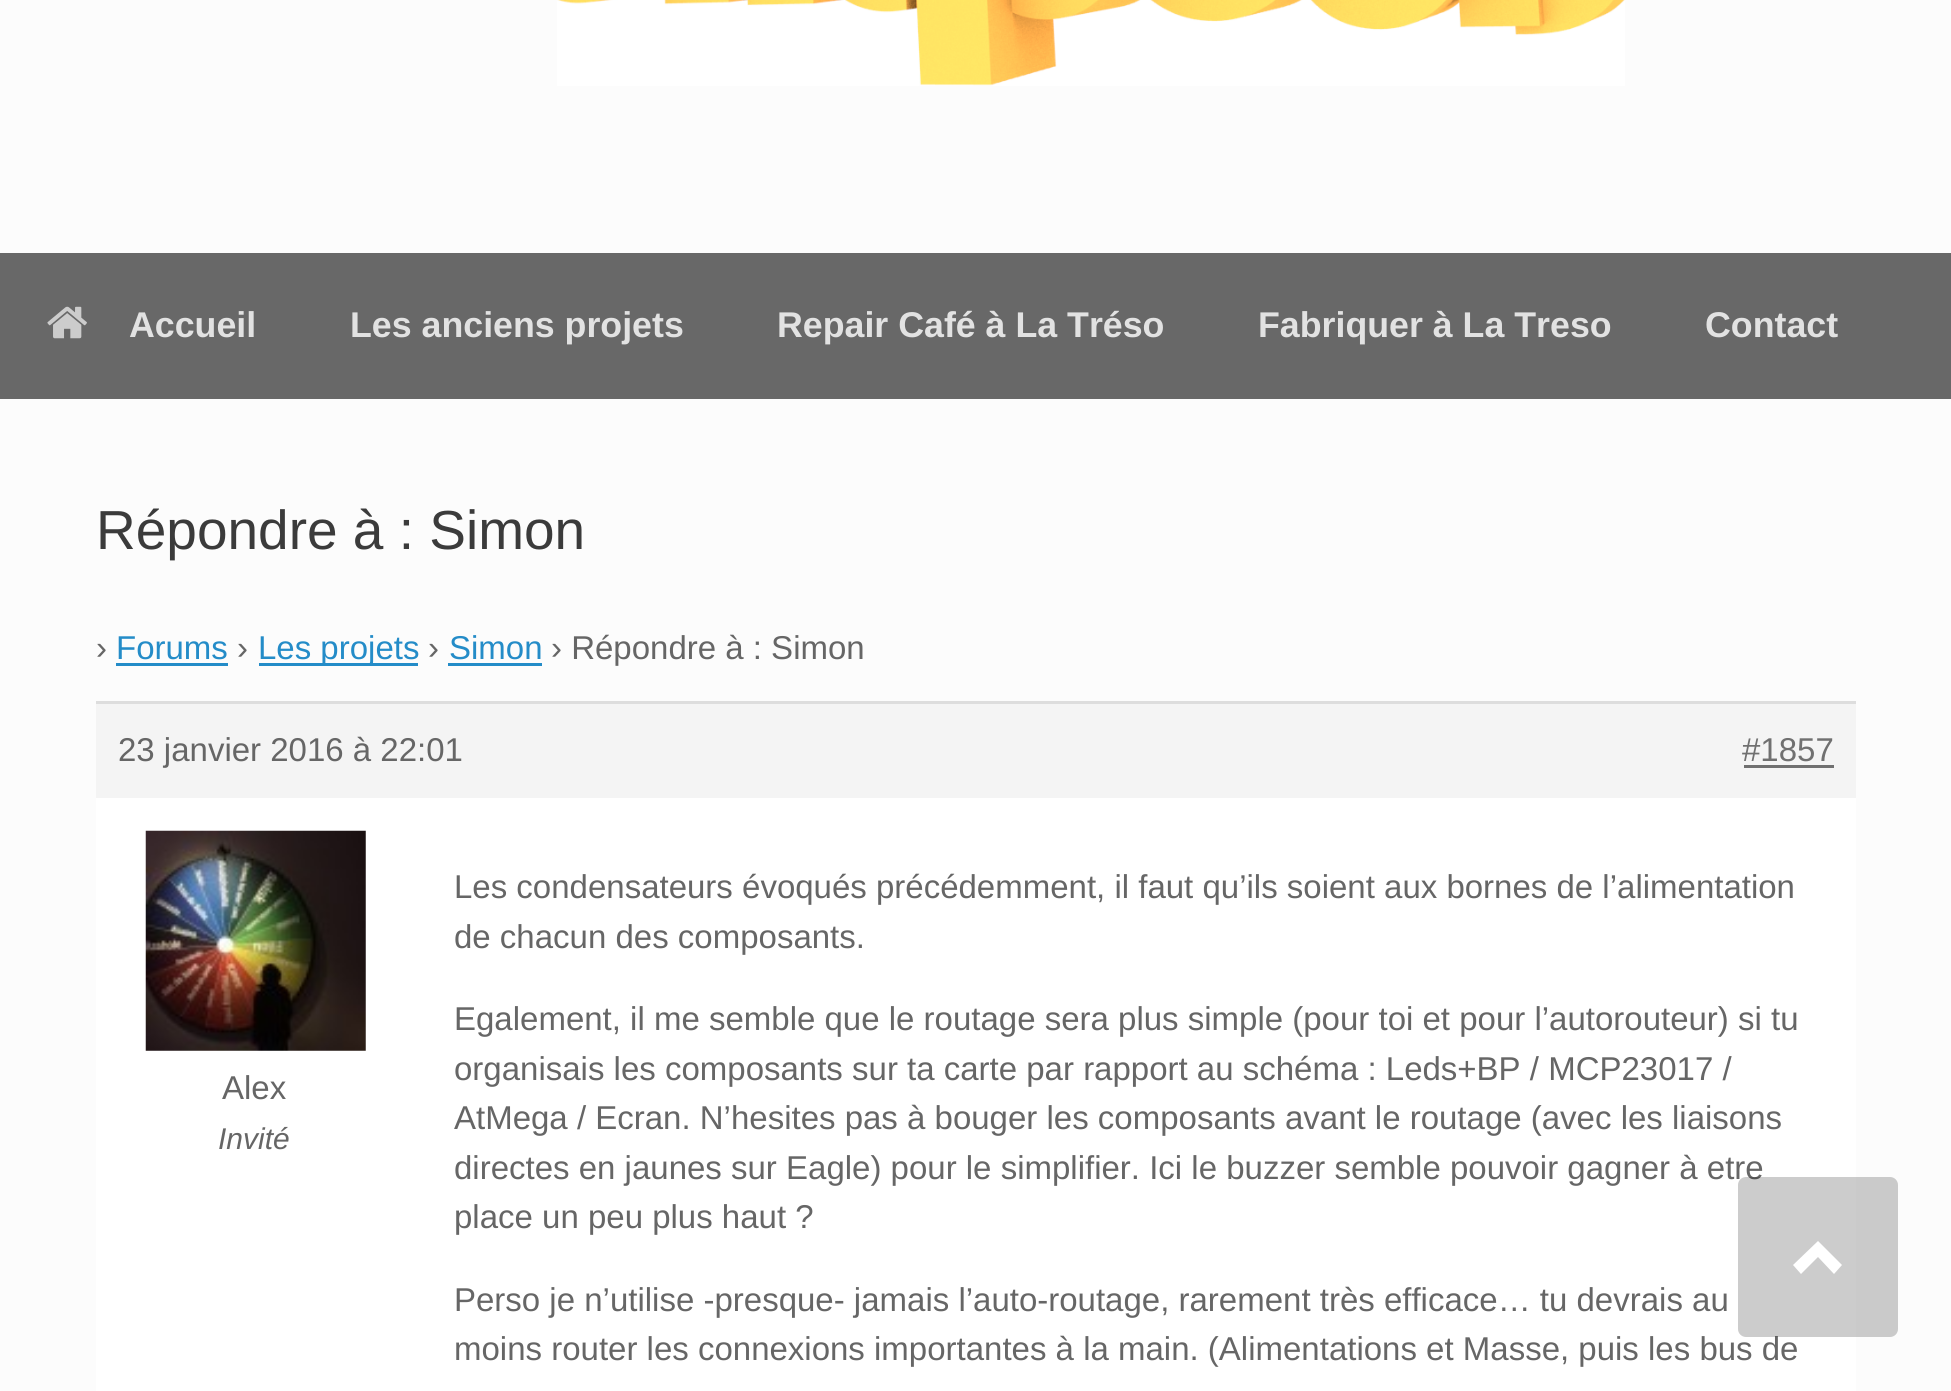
import math
import cairo

surface = cairo.ImageSurface(cairo.Format.RGB24, 1951, 1391)
ctx = cairo.Context(surface)
options = cairo.FontOptions()
options.set_hint_metrics(cairo.HintMetrics.OFF)
options.set_hint_style(cairo.HintStyle.NONE)
ctx.set_font_options(options)
ctx.set_miter_limit(4)


def ink(r, g, b):
    ctx.set_source_rgb(r / 255, g / 255, b / 255)


def write(x, y, s, family, size, color, bold=False, italic=False):
    ctx.select_font_face(family, cairo.FontSlant.ITALIC if italic else cairo.FontSlant.NORMAL, cairo.FontWeight.BOLD if bold else cairo.FontWeight.NORMAL)
    ctx.set_font_size(size)
    ink(*color)
    ctx.move_to(x, y)
    ctx.show_text(s)


def block(x, y, w, h, *color):
    ink(*color)
    ctx.rectangle(x, y, w, h)
    ctx.fill()


def round_path(x, y, w, h, r):
    ctx.new_sub_path()
    for i, (u, v) in enumerate([(x + w - r, y + h - r), (x + r, y + h - r), (x + r, y + r), (x + w - r, y + r)]):
        ctx.arc(u, v, r, i * math.pi / 2, (i + 1) * math.pi / 2)
    ctx.close_path()


def paste(path, x, y, w, h):
    ctx.save()
    ctx.set_source_surface(cairo.ImageSurface.create_from_png(path), x, y)
    ctx.rectangle(x, y, w, h)
    ctx.fill()
    ctx.restore()


s1 = dict(family="Liberation Sans", size=35.75, color=(226, 226, 226), bold=True)
s2 = dict(family="Liberation Sans", size=55, color=(59, 59, 59))
s3 = dict(family="Liberation Sans", size=33, color=(102, 102, 102))
s4 = dict(family="Liberation Sans", size=33, color=(36, 140, 200))
s5 = dict(family="Liberation Sans", size=33, color=(112, 112, 112))
s6 = dict(family="Liberation Sans", size=30, color=(102, 102, 102), italic=True)

ink(252, 252, 252)
ctx.paint()
paste("pic1.png", 557, 0, 1068, 86)
block(0, 253, 1951, 146, 104, 104, 104)
paste("pic2.png", 47, 306, 40, 33)
write(129, 337, "Accueil", **s1)
write(350, 337, "Les anciens projets", **s1)
write(777, 337, "Repair Café à La Tréso", **s1)
write(1258, 337, "Fabriquer à La Treso", **s1)
write(1705, 337, "Contact", **s1)
write(96, 549, "Répondre à : Simon", **s2)
write(96, 659, "›", **s3)
write(116, 659, "Forums", **s4)
block(116, 663, 112, 3, 36, 140, 200)
write(237, 659, "›", **s3)
block(259, 663, 159, 3, 36, 140, 200)
write(258, 659, "Les projets", **s4)
write(428, 659, "›", **s3)
write(449, 659, "Simon", **s4)
block(448, 663, 94, 3, 36, 140, 200)
write(551, 659, "› Répondre à : Simon", **s3)
block(96, 704, 1760, 94, 244, 244, 244)
block(96, 701, 1760, 3, 221, 221, 221)
write(118, 761, "23 janvier 2016 à 22:01", **s3)
write(1742, 761, "#1857", **s5)
block(1744, 765, 90, 3, 112, 112, 112)
block(96, 798, 1760, 593, 255, 255, 255)
paste("pic3.png", 145, 830, 221, 221)
write(222, 1099, "Alex", **s3)
write(218, 1149, "Invité", **s6)
write(454, 898, "Les condensateurs évoqués précédemment, il faut qu’ils soient aux bornes de l’alimentation", **s3)
write(454, 948, "de chacun des composants.", **s3)
write(454, 1030, "Egalement, il me semble que le routage sera plus simple (pour toi et pour l’autorouteur) si tu", **s3)
write(454, 1080, "organisais les composants sur ta carte par rapport au schéma : Leds+BP / MCP23017 /", **s3)
write(454, 1129, "AtMega / Ecran. N’hesites pas à bouger les composants avant le routage (avec les liaisons", **s3)
write(454, 1179, "directes en jaunes sur Eagle) pour le simplifier. Ici le buzzer semble pouvoir gagner à etre", **s3)
write(454, 1228, "place un peu plus haut ?", **s3)
write(454, 1311, "Perso je n’utilise -presque- jamais l’auto-routage, rarement très efficace… tu devrais au", **s3)
write(454, 1360, "moins router les connexions importantes à la main. (Alimentations et Masse, puis les bus de", **s3)
ctx.set_source_rgba(0, 0, 0, 0.2)
round_path(1738, 1177, 160, 160, 8)
ctx.fill()
ink(255, 255, 255)
ctx.new_path()
ctx.move_to(1842, 1265)
ctx.line_to(1818, 1241)
ctx.line_to(1793, 1265)
ctx.line_to(1801, 1274)
ctx.line_to(1818, 1257)
ctx.line_to(1834, 1274)
ctx.close_path()
ctx.fill()
surface.write_to_png("screenshot.png")
